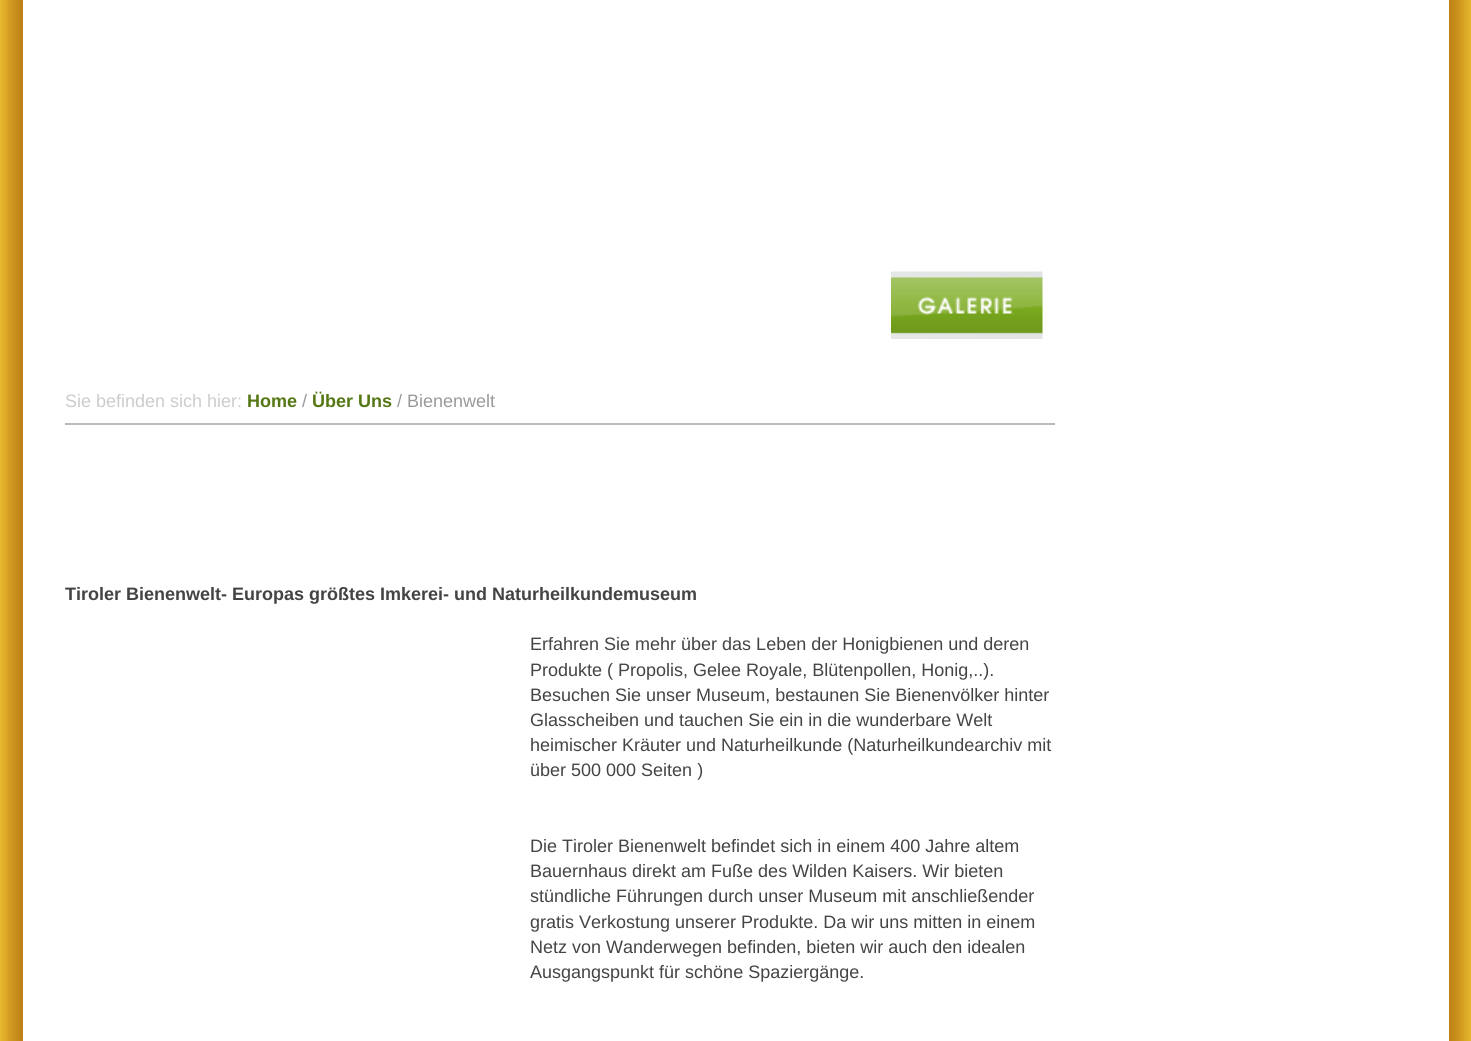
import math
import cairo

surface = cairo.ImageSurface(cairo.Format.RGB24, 1471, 1041)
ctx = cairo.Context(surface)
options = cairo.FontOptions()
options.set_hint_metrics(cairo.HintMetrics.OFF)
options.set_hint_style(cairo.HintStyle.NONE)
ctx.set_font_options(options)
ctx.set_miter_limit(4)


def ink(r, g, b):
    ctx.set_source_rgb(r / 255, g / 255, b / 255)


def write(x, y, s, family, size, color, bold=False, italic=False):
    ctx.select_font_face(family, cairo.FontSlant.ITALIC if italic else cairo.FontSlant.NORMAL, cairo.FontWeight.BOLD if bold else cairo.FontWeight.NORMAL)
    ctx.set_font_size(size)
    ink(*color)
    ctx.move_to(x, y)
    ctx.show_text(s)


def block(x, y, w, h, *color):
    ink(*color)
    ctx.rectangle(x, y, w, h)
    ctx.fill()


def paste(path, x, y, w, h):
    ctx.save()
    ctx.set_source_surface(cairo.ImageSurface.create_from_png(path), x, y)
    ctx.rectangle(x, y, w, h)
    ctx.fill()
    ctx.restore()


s1 = dict(family="Liberation Sans", size=18, color=(204, 204, 204))
s2 = dict(family="Liberation Sans", size=18, color=(85, 120, 20), bold=True)
s3 = dict(family="Liberation Sans", size=18, color=(153, 153, 153))
s4 = dict(family="Liberation Sans", size=18, color=(68, 68, 68), bold=True)
s5 = dict(family="Liberation Sans", size=18, color=(68, 68, 68))

ink(255, 255, 255)
ctx.paint()
paste("pic1.png", 0, 0, 1471, 1041)
block(23, 0, 1426, 1041, 255, 255, 255)
paste("pic2.png", 891, 271, 152, 68)
write(65, 407, "Sie befinden sich hier:", **s1)
write(247, 407, "Home", **s2)
write(302, 407, "/", **s3)
write(312, 407, "Über Uns", **s2)
write(397, 407, "/ Bienenwelt", **s3)
block(65, 423, 990, 2, 187, 187, 187)
write(65, 600, "Tiroler Bienenwelt- Europas größtes Imkerei- und Naturheilkundemuseum", **s4)
write(530, 650, "Erfahren Sie mehr über das Leben der Honigbienen und deren", **s5)
write(530, 676, "Produkte ( Propolis, Gelee Royale, Blütenpollen, Honig,..).", **s5)
write(530, 701, "Besuchen Sie unser Museum, bestaunen Sie Bienenvölker hinter", **s5)
write(530, 726, "Glasscheiben und tauchen Sie ein in die wunderbare Welt", **s5)
write(530, 751, "heimischer Kräuter und Naturheilkunde (Naturheilkundearchiv mit", **s5)
write(530, 776, "über 500 000 Seiten )", **s5)
write(530, 852, "Die Tiroler Bienenwelt befindet sich in einem 400 Jahre altem", **s5)
write(530, 877, "Bauernhaus direkt am Fuße des Wilden Kaisers. Wir bieten", **s5)
write(530, 902, "stündliche Führungen durch unser Museum mit anschließender", **s5)
write(530, 928, "gratis Verkostung unserer Produkte. Da wir uns mitten in einem", **s5)
write(530, 953, "Netz von Wanderwegen befinden, bieten wir auch den idealen", **s5)
write(530, 978, "Ausgangspunkt für schöne Spaziergänge.", **s5)
surface.write_to_png("screenshot.png")
